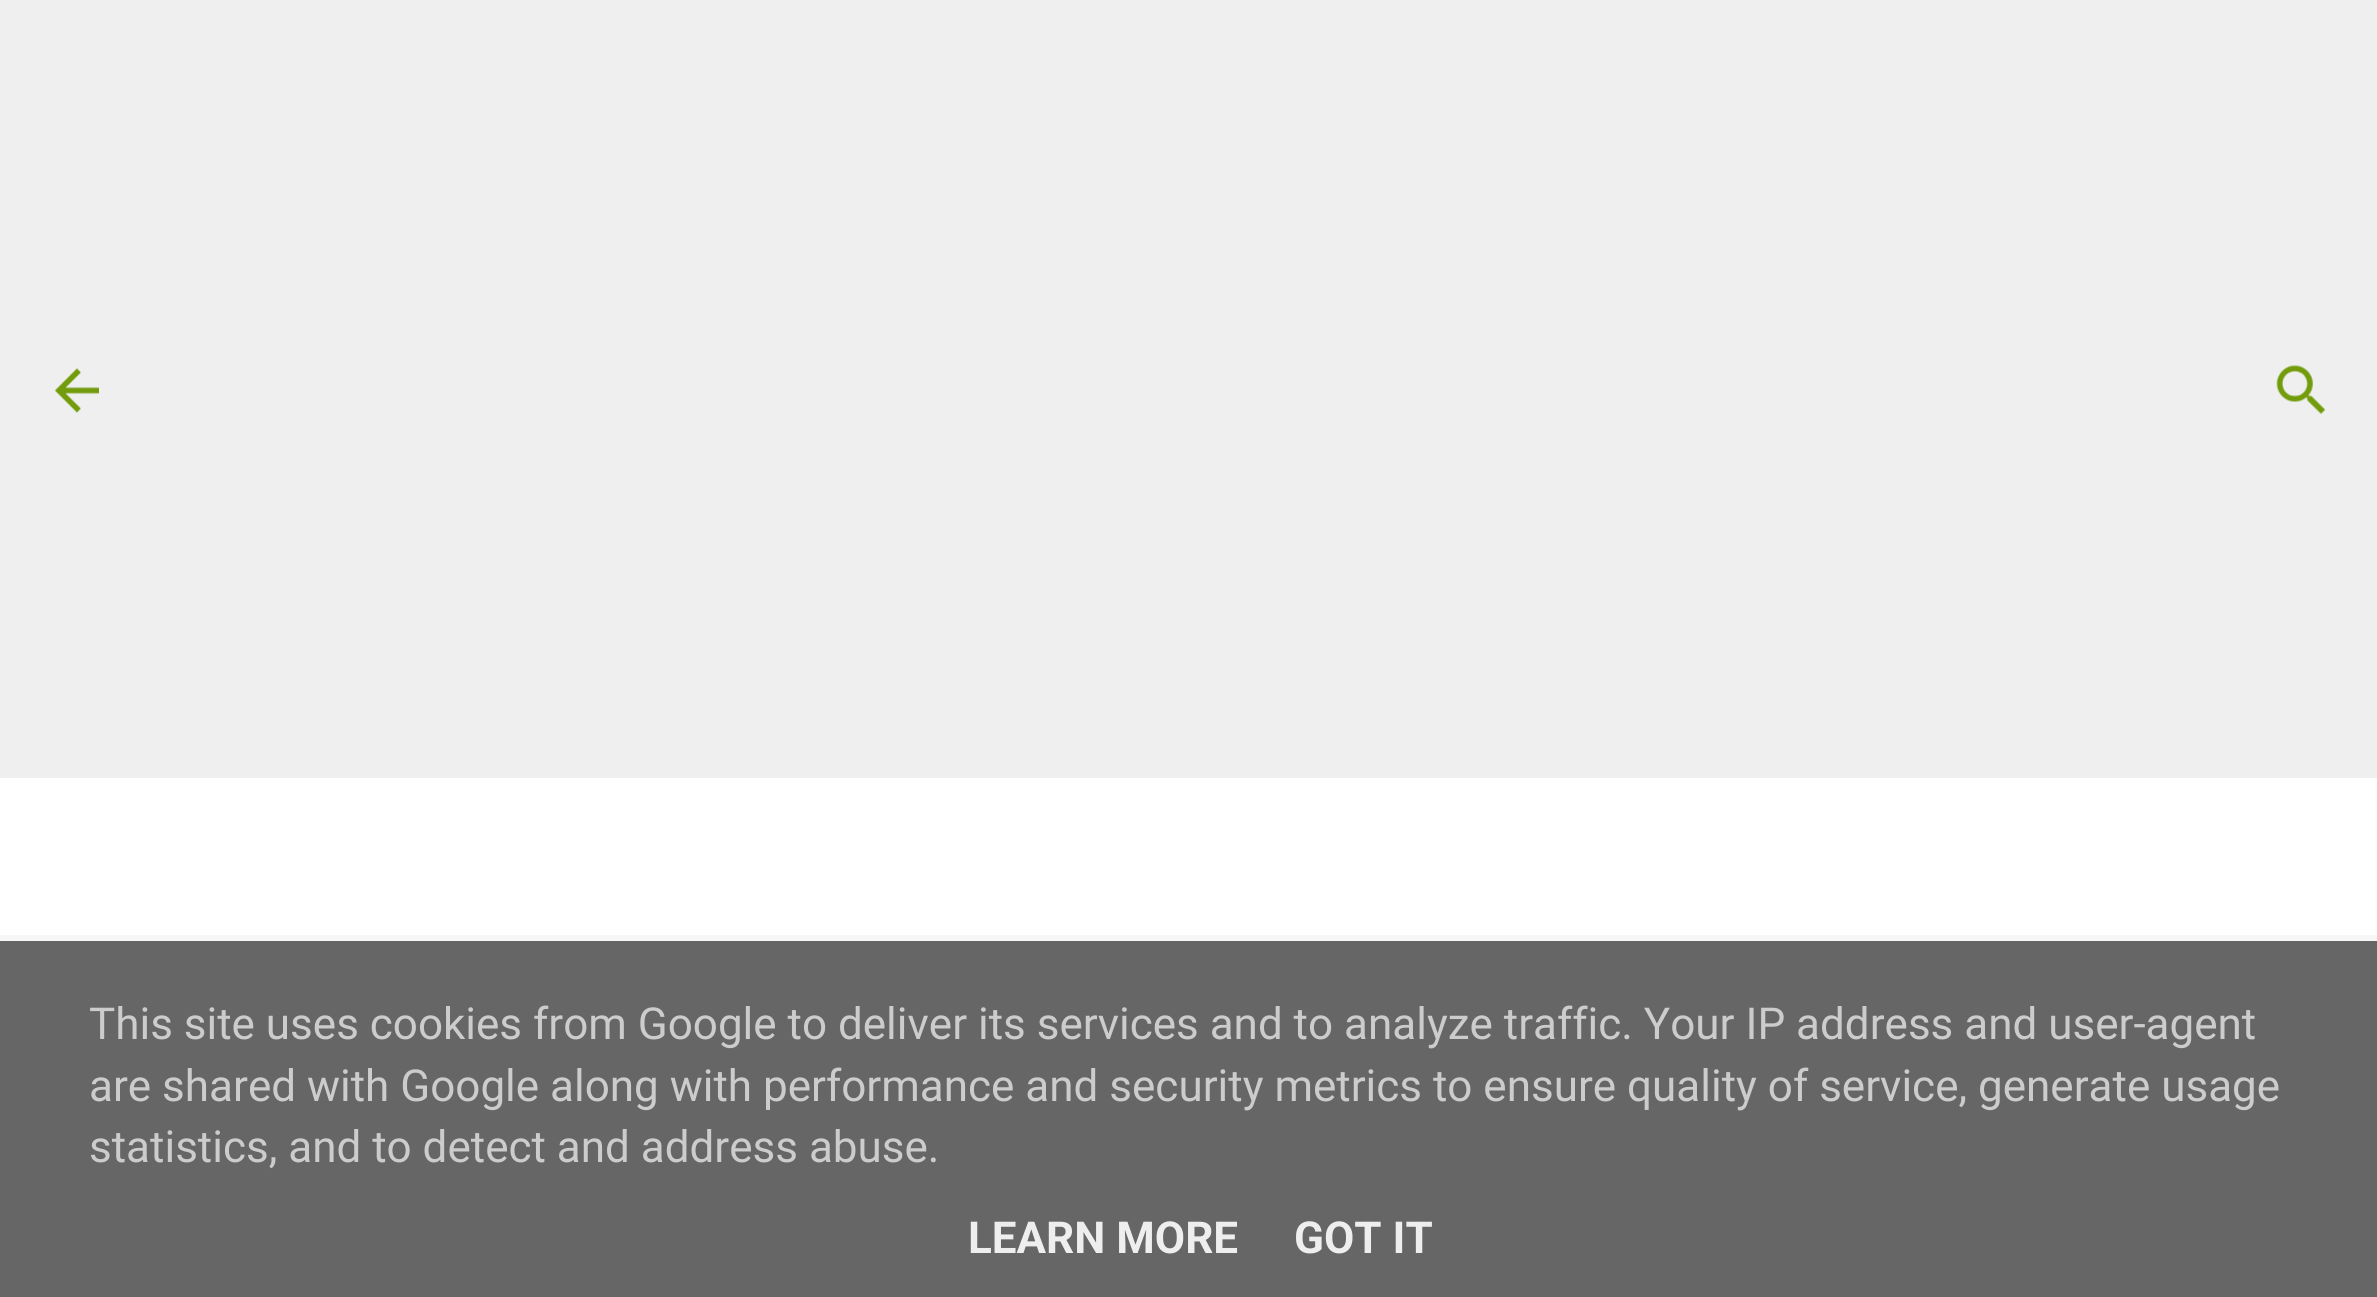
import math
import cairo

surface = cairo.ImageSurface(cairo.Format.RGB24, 2377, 1297)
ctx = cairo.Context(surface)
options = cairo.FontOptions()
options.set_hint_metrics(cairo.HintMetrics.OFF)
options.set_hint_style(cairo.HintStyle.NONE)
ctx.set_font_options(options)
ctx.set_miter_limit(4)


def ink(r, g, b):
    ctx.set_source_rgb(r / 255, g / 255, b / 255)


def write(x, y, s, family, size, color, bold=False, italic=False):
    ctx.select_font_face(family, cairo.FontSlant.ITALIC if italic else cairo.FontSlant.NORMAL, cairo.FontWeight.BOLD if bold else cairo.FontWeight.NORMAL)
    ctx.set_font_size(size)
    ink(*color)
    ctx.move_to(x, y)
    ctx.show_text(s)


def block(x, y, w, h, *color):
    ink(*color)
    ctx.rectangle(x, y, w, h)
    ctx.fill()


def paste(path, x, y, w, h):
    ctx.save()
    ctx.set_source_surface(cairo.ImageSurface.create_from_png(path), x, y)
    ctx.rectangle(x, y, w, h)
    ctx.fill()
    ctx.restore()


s1 = dict(family="Roboto", size=44, color=(204, 204, 204))
s2 = dict(family="Roboto", size=44, color=(238, 238, 238), bold=True)

ink(247, 247, 247)
ctx.paint()
block(0, 0, 2377, 778, 239, 239, 239)
paste("pic1.png", 55, 368, 44, 45)
paste("pic2.png", 2276, 365, 50, 50)
block(0, 778, 2377, 157, 255, 255, 255)
block(0, 941, 2377, 356, 102, 102, 102)
write(89, 1039, "This site uses cookies from Google to deliver its services and to analyze traffic. Your IP address and user-agent", **s1)
write(89, 1101, "are shared with Google along with performance and security metrics to ensure quality of service, generate usage", **s1)
write(89, 1162, "statistics, and to detect and address abuse.", **s1)
write(968, 1253, "LEARN MORE", **s2)
write(1294, 1253, "GOT IT", **s2)
surface.write_to_png("screenshot.png")
